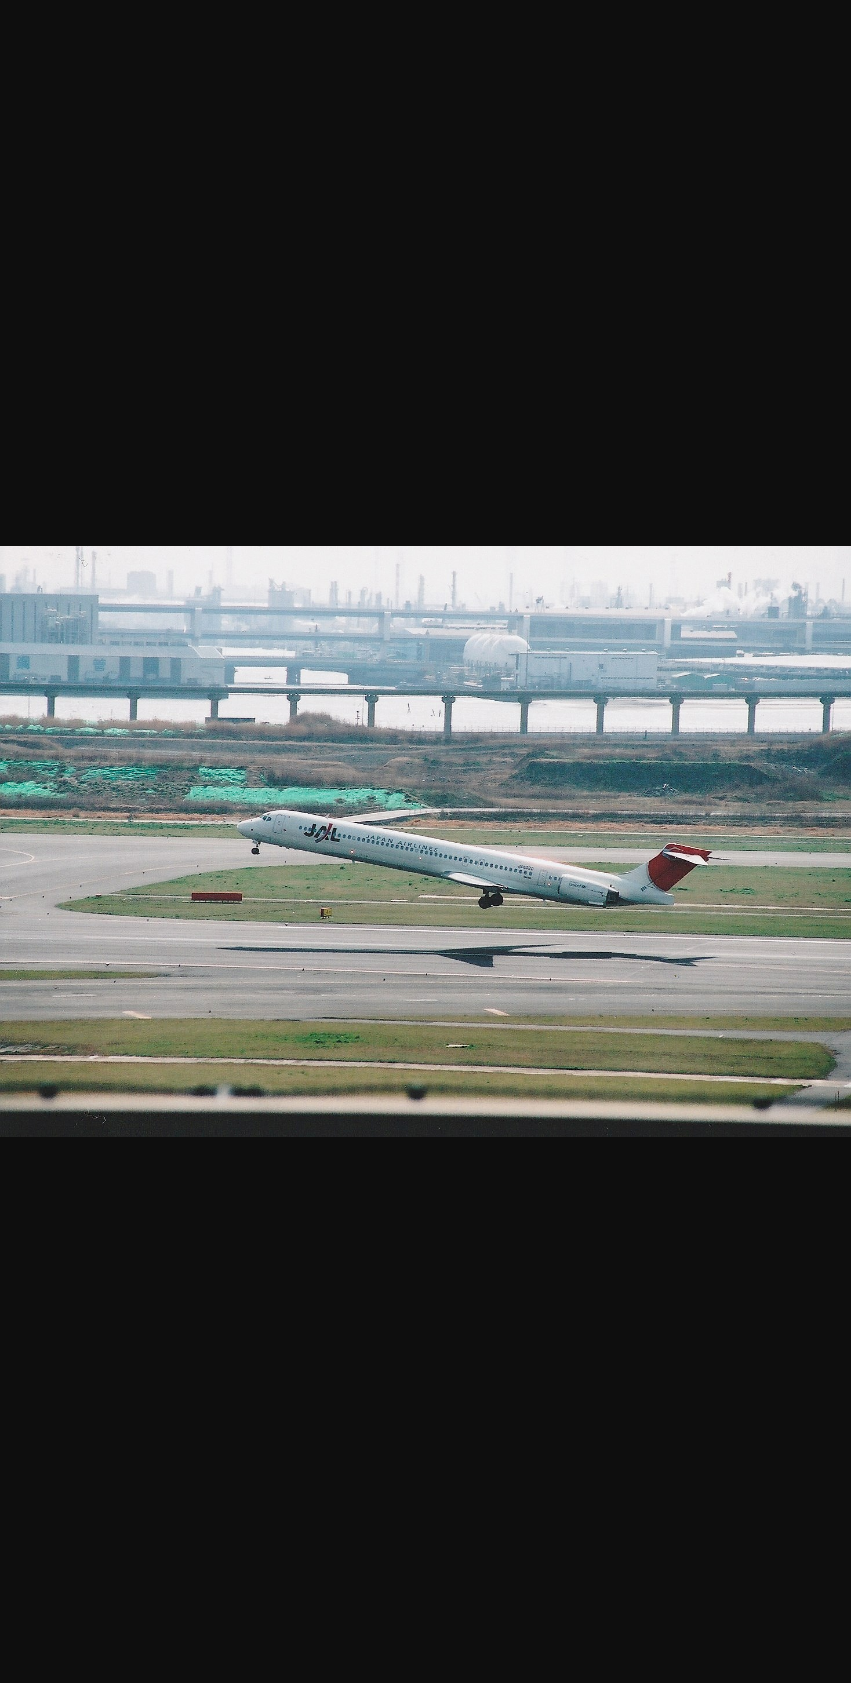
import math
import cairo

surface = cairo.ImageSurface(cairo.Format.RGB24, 851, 1683)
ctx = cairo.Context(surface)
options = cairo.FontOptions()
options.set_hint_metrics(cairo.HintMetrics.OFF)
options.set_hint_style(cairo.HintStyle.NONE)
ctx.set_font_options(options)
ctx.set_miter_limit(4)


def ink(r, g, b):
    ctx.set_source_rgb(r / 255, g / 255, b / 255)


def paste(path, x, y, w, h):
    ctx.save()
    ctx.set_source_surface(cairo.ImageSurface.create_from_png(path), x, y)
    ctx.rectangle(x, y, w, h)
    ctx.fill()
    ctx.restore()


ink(14, 14, 14)
ctx.paint()
paste("pic1.png", 0, 546, 851, 591)
surface.write_to_png("screenshot.png")
